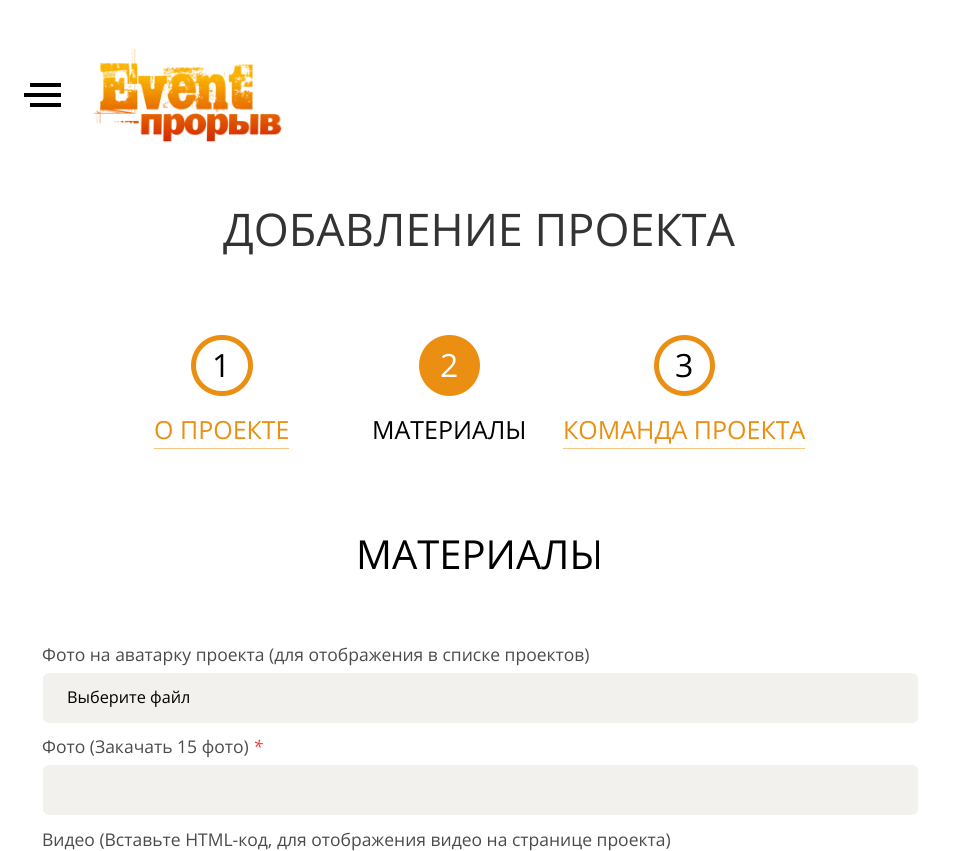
import math
import cairo

surface = cairo.ImageSurface(cairo.Format.RGB24, 958, 851)
ctx = cairo.Context(surface)
options = cairo.FontOptions()
options.set_hint_metrics(cairo.HintMetrics.OFF)
options.set_hint_style(cairo.HintStyle.NONE)
ctx.set_font_options(options)
ctx.set_miter_limit(4)


def ink(r, g, b):
    ctx.set_source_rgb(r / 255, g / 255, b / 255)


def write(x, y, s, family, size, color, bold=False, italic=False):
    ctx.select_font_face(family, cairo.FontSlant.ITALIC if italic else cairo.FontSlant.NORMAL, cairo.FontWeight.BOLD if bold else cairo.FontWeight.NORMAL)
    ctx.set_font_size(size)
    ink(*color)
    ctx.move_to(x, y)
    ctx.show_text(s)


def block(x, y, w, h, *color):
    ink(*color)
    ctx.rectangle(x, y, w, h)
    ctx.fill()


def round_path(x, y, w, h, r):
    ctx.new_sub_path()
    for i, (u, v) in enumerate([(x + w - r, y + h - r), (x + r, y + h - r), (x + r, y + r), (x + w - r, y + r)]):
        ctx.arc(u, v, r, i * math.pi / 2, (i + 1) * math.pi / 2)
    ctx.close_path()


def paste(path, x, y, w, h):
    ctx.save()
    ctx.set_source_surface(cairo.ImageSurface.create_from_png(path), x, y)
    ctx.rectangle(x, y, w, h)
    ctx.fill()
    ctx.restore()


s1 = dict(family="Open Sans", size=45, color=(51, 51, 51))
s2 = dict(family="Open Sans", size=32, color=(0, 0, 0))
s3 = dict(family="Open Sans", size=25, color=(235, 143, 18))
s4 = dict(family="Open Sans", size=32, color=(255, 255, 255))
s5 = dict(family="Open Sans", size=25, color=(0, 0, 0))
s6 = dict(family="Open Sans", size=40, color=(0, 0, 0))
s7 = dict(family="Open Sans", size=17.5, color=(75, 75, 75))
s8 = dict(family="Open Sans", size=16.25, color=(0, 0, 0))
s9 = dict(family="Open Sans", size=17.5, color=(255, 42, 37), italic=True)

ink(255, 255, 255)
ctx.paint()
block(30, 83, 31, 4, 0, 0, 0)
block(24, 93, 37, 4, 0, 0, 0)
block(30, 103, 31, 4, 0, 0, 0)
paste("pic1.png", 93, 48, 189, 94)
write(223, 246, "ДОБАВЛЕНИЕ ПРОЕКТА", **s1)
round_path(193.5, 337.5, 57, 56, 28)
ink(235, 143, 18)
ctx.set_line_width(5)
ctx.stroke()
write(212, 377, "1", **s2)
write(154, 439, "О ПРОЕКТЕ", **s3)
block(154, 448, 135, 1, 245, 199, 136)
ink(235, 143, 18)
ctx.new_path()
ctx.arc(449.5, 365.5, 28, 0, 2 * math.pi)
ctx.fill_preserve()
ctx.stroke()
write(440, 377, "2", **s4)
write(372, 439, "МАТЕРИАЛЫ", **s5)
ctx.new_path()
ctx.arc(684.5, 365.5, 28, 0, 2 * math.pi)
ink(235, 143, 18)
ctx.stroke()
write(675, 377, "3", **s2)
write(563, 439, "КОМАНДА ПРОЕКТА", **s3)
block(563, 448, 242, 1, 245, 199, 136)
write(356, 569, "МАТЕРИАЛЫ", **s6)
write(42, 661, "Фото на аватарку проекта (для отображения в списке проектов)", **s7)
ink(243, 241, 237)
round_path(43, 673, 875, 50, 6)
ctx.fill()
write(67, 703, "Выберите файл", **s8)
write(42, 753, "Фото (Закачать 15 фото)", **s7)
write(253, 753, "*", **s9)
ink(243, 241, 237)
round_path(43, 765, 875, 50, 6)
ctx.fill()
write(42, 846, "Видео (Вставьте HTML-код, для отображения видео на странице проекта)", **s7)
surface.write_to_png("screenshot.png")
